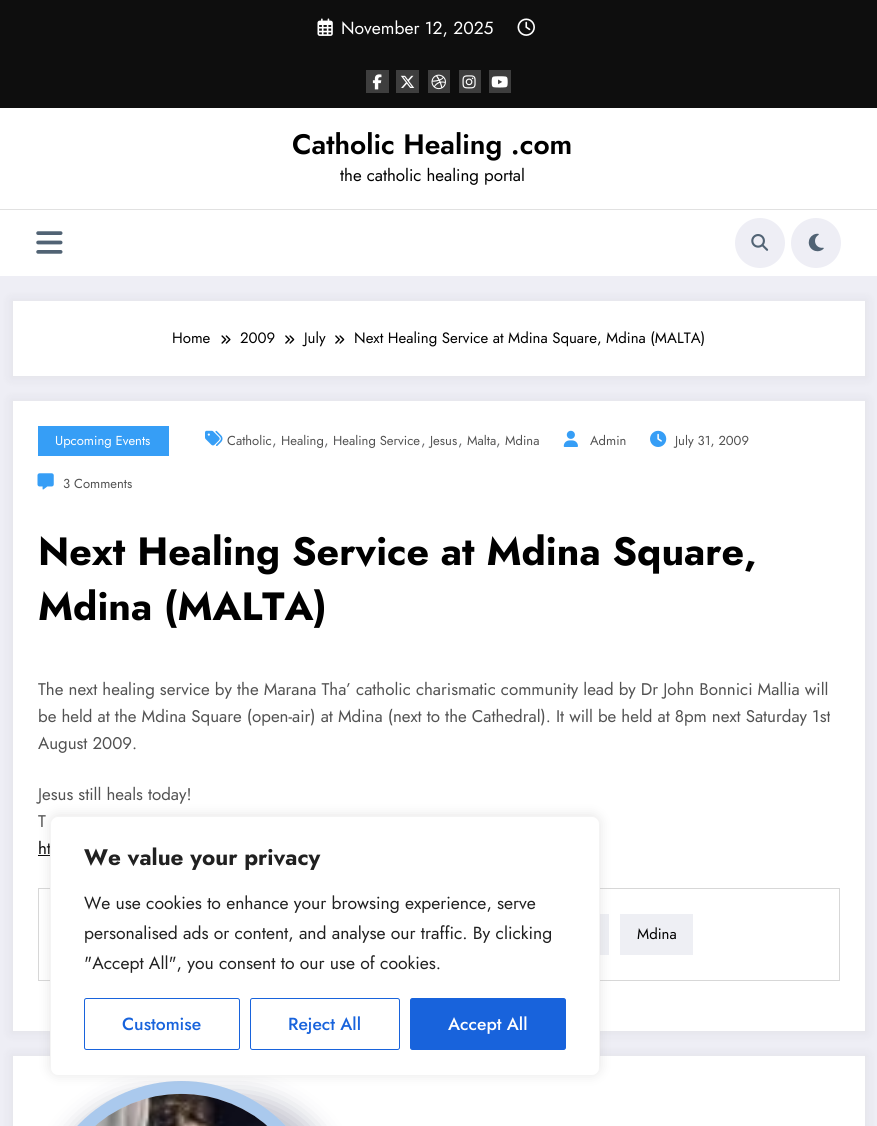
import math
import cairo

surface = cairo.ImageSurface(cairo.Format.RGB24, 877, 1126)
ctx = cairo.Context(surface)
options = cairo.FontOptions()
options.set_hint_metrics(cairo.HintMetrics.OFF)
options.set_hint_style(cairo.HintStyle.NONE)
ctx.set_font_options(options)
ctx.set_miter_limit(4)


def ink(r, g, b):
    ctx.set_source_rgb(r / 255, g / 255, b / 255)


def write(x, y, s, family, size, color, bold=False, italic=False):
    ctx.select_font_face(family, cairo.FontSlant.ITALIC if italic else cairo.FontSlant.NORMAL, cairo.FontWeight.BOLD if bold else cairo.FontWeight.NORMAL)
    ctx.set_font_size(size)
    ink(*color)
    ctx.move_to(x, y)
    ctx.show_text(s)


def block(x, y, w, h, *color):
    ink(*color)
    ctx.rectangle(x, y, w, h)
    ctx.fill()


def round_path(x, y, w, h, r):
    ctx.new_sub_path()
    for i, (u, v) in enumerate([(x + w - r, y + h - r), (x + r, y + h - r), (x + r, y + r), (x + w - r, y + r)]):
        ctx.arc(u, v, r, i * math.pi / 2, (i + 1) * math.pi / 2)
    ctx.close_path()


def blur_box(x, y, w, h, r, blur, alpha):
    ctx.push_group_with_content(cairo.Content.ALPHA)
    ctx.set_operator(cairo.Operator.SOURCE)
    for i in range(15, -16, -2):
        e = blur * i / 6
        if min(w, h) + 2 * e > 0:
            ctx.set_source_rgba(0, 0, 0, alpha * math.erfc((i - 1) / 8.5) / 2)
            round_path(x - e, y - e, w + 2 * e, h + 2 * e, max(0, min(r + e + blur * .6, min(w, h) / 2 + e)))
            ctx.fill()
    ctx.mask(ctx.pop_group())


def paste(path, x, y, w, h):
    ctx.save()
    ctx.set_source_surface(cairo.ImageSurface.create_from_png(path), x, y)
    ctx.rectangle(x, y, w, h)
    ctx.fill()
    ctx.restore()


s1 = dict(family="Jost", size=17.5, color=(255, 255, 255))
s2 = dict(family="Jost SemiBold", size=28.1, color=(0, 0, 0))
s3 = dict(family="Jost", size=16.9, color=(0, 0, 0))
s4 = dict(family="Jost", size=15, color=(0, 0, 0))
s5 = dict(family="Jost", size=13, color=(255, 255, 255))
s6 = dict(family="Jost", size=13, color=(82, 82, 82))
s7 = dict(family="Jost", size=15, color=(108, 108, 111))
s8 = dict(family="Jost", size=39.4, color=(0, 0, 0), bold=True)
s9 = dict(family="Jost", size=16.9, color=(82, 82, 82))
s10 = dict(family="Jost", size=22.5, color=(33, 33, 33), bold=True)
s11 = dict(family="Jost", size=17.5, color=(33, 33, 33))
s12 = dict(family="Jost Medium", size=17.5, color=(24, 99, 220))
s13 = dict(family="Jost Medium", size=17.5, color=(255, 255, 255))

ink(238, 238, 245)
ctx.paint()
block(0, 0, 877, 108, 14, 14, 14)
paste("pic1.png", 317, 18, 16, 18)
write(341, 34, "November 12, 2025", **s1)
paste("pic2.png", 517, 18, 18, 18)
block(366, 70, 23, 23, 62, 62, 62)
paste("pic3.png", 372, 74, 10, 16)
block(396, 70, 23, 23, 62, 62, 62)
paste("pic4.png", 400, 75, 15, 13)
block(428, 70, 22, 23, 62, 62, 62)
paste("pic5.png", 431, 74, 15, 16)
block(459, 70, 22, 23, 62, 62, 62)
paste("pic6.png", 462, 75, 14, 14)
block(489, 70, 22, 23, 62, 62, 62)
paste("pic7.png", 491, 76, 17, 12)
block(0, 108, 877, 168, 255, 255, 255)
write(292, 154, "Catholic Healing .com", **s2)
write(340, 181, "the catholic healing portal", **s3)
block(0, 209, 877, 1, 225, 225, 225)
paste("pic8.png", 36, 231, 27, 23)
ink(238, 238, 245)
ctx.arc(760, 243, 25, 0, 2 * math.pi)
ctx.fill()
paste("pic9.png", 751, 234, 18, 17)
ctx.arc(816, 243, 25, 0, 2 * math.pi)
ctx.fill()
paste("pic10.png", 808, 233, 16, 19)
ink(23, 23, 35)
blur_box(10, 299, 858, 80, 0, 5, 0.05)
block(13, 301, 852, 75, 255, 255, 255)
write(172, 343, "Home", **s4)
paste("pic11.png", 221, 335, 10, 9)
write(240, 343, "2009", **s4)
paste("pic12.png", 285, 335, 10, 9)
write(304, 343, "July", **s4)
paste("pic12.png", 335, 335, 10, 9)
write(354, 343, "Next Healing Service at Mdina Square, Mdina (MALTA)", **s4)
ink(23, 23, 35)
blur_box(10, 399, 858, 635, 0, 5, 0.05)
block(13, 401, 852, 630, 255, 255, 255)
block(38, 426, 131, 30, 54, 158, 246)
write(55, 445, "Upcoming Events", **s5)
paste("pic13.png", 205, 430, 18, 16)
write(227, 445, "Catholic", **s6)
write(272, 445, ",", **s7)
write(281, 445, "Healing", **s6)
write(324, 445, ",", **s7)
write(333, 445, "Healing Service", **s6)
write(421, 445, ",", **s7)
write(430, 445, "Jesus", **s6)
write(458, 445, ",", **s7)
write(467, 445, "Malta", **s6)
write(496, 445, ",", **s7)
write(505, 445, "Mdina", **s6)
paste("pic14.png", 563, 430, 15, 17)
write(590, 445, "Admin", **s6)
paste("pic15.png", 650, 430, 17, 17)
write(675, 445, "July 31, 2009", **s6)
paste("pic16.png", 37, 473, 17, 17)
write(63, 488, "3 Comments", **s6)
write(38, 565, "Next Healing Service at Mdina Square,", **s8)
write(38, 620, "Mdina (MALTA)", **s8)
write(38, 695, "The next healing service by the Marana Tha’ catholic charismatic community lead by Dr John Bonnici Mallia will", **s9)
write(38, 722, "be held at the Mdina Square (open-air) at Mdina (next to the Cathedral). It will be held at 8pm next Saturday 1st", **s9)
write(38, 749, "August 2009.", **s9)
write(38, 800, "Jesus still heals today!", **s9)
write(38, 827, "T", **s9)
write(38, 854, "ht", **s3)
block(38, 855, 12, 1, 0, 0, 0)
ctx.rectangle(38.5, 888.5, 801, 92)
ink(215, 215, 215)
ctx.set_line_width(1)
ctx.stroke()
block(600, 914, 9, 41, 238, 239, 244)
block(620, 914, 73, 41, 238, 239, 244)
write(637, 939, "Mdina", **s4)
ink(23, 23, 35)
blur_box(10, 1054, 858, 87, 0, 5, 0.05)
block(13, 1056, 852, 70, 255, 255, 255)
ink(4, 8, 54)
blur_box(51, 1095, 288, 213, 144, 12.5, 0.25)
ink(220, 220, 232)
round_path(38, 1081, 287, 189, 143.5)
ctx.fill()
round_path(44.5, 1087.5, 274, 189, 137)
ctx.set_source_rgba(0.212, 0.62, 0.965, 0.3)
ctx.set_line_width(13)
ctx.stroke()
paste("pic17.png", 95, 1093, 173, 33)
ink(172, 171, 171)
blur_box(50, 815, 550, 260, 8, 6, 0.3)
ink(255, 255, 255)
round_path(50.5, 816.5, 549, 259, 7.5)
ctx.fill_preserve()
ink(244, 244, 244)
ctx.set_line_width(1)
ctx.stroke()
write(84, 865, "We value your privacy", **s10)
write(84, 909, "We use cookies to enhance your browsing experience, serve", **s11)
write(84, 939, "personalised ads or content, and analyse our traffic. By clicking", **s11)
write(84, 969, "\"Accept All\", you consent to our use of cookies.", **s11)
round_path(84.5, 998.5, 155, 51, 2)
ink(24, 99, 220)
ctx.stroke()
write(122, 1030, "Customise", **s12)
round_path(250.5, 998.5, 149, 51, 2)
ctx.stroke()
write(288, 1030, "Reject All", **s12)
round_path(410.5, 998.5, 155, 51, 2)
ctx.fill_preserve()
ctx.stroke()
write(448, 1030, "Accept All", **s13)
surface.write_to_png("screenshot.png")
